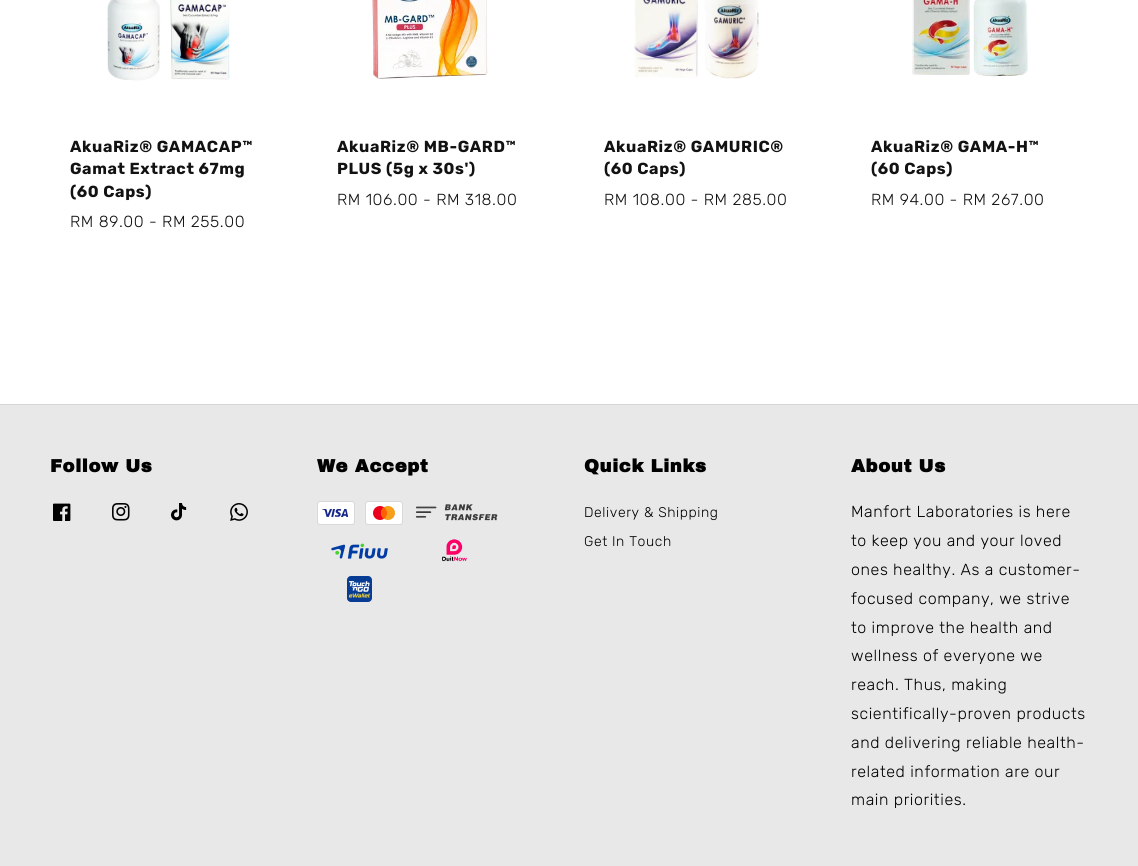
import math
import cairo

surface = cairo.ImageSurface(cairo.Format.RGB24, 1138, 866)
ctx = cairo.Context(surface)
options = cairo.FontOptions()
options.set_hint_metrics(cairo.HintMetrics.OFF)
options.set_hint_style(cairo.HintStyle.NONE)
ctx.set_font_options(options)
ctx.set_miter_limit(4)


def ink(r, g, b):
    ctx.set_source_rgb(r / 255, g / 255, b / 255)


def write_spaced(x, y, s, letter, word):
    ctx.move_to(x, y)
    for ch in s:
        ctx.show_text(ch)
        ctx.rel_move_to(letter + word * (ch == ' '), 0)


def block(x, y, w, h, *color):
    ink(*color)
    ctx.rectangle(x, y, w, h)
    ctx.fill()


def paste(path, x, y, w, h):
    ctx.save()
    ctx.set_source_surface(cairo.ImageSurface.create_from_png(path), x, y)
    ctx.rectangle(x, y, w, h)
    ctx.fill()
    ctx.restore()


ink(255, 255, 255)
ctx.paint()
paste("pic1.png", 107, 0, 123, 81)
ctx.select_font_face("Rubik", cairo.FontSlant.NORMAL, cairo.FontWeight.BOLD)
ctx.set_font_size(16)
ink(18, 18, 18)
write_spaced(70, 152, "AkuaRiz® GAMACAP™", 0.6, 0)
write_spaced(70, 174, "Gamat Extract 67mg", 0.6, 0)
write_spaced(70, 197, "(60 Caps)", 0.6, 0)
ctx.select_font_face("Rubik Light")
write_spaced(70, 227, "RM 89.00 - RM 255.00", 0.6, 0)
paste("pic2.png", 372, 0, 116, 79)
ctx.select_font_face("Rubik", cairo.FontSlant.NORMAL, cairo.FontWeight.BOLD)
write_spaced(337, 152, "AkuaRiz® MB-GARD™", 0.6, 0)
write_spaced(337, 174, "PLUS (5g x 30s')", 0.6, 0)
ctx.select_font_face("Rubik Light")
write_spaced(337, 205, "RM 106.00 - RM 318.00", 0.6, 0)
paste("pic3.png", 634, 0, 125, 79)
ctx.select_font_face("Rubik", cairo.FontSlant.NORMAL, cairo.FontWeight.BOLD)
write_spaced(604, 152, "AkuaRiz® GAMURIC®", 0.6, 0)
write_spaced(604, 174, "(60 Caps)", 0.6, 0)
ctx.select_font_face("Rubik Light")
write_spaced(604, 205, "RM 108.00 - RM 285.00", 0.6, 0)
paste("pic4.png", 912, 0, 116, 77)
ctx.select_font_face("Rubik", cairo.FontSlant.NORMAL, cairo.FontWeight.BOLD)
write_spaced(871, 152, "AkuaRiz® GAMA-H™", 0.6, 0)
write_spaced(871, 174, "(60 Caps)", 0.6, 0)
ctx.select_font_face("Rubik Light")
write_spaced(871, 205, "RM 94.00 - RM 267.00", 0.6, 0)
block(0, 405, 1138, 461, 232, 232, 233)
block(0, 404, 1138, 1, 213, 213, 214)
ctx.select_font_face("Archivo Black", cairo.FontSlant.NORMAL, cairo.FontWeight.BOLD)
ctx.set_font_size(18)
ink(0, 0, 0)
write_spaced(50, 472, "Follow Us", 0.6, 0)
paste("pic5.png", 53, 503, 18, 18)
paste("pic6.png", 112, 503, 18, 18)
paste("pic7.png", 171, 503, 16, 18)
paste("pic8.png", 230, 503, 18, 18)
write_spaced(317, 472, "We Accept", 0.6, 0)
paste("pic9.png", 317, 501, 38, 24)
paste("pic10.png", 365, 501, 38, 24)
paste("pic11.png", 415, 504, 83, 17)
paste("pic12.png", 331, 543, 57, 16)
paste("pic13.png", 442, 539, 25, 23)
paste("pic14.png", 347, 576, 25, 26)
write_spaced(584, 472, "Quick Links", 0.6, 0)
ctx.select_font_face("Rubik Light")
ctx.set_font_size(14)
write_spaced(584, 517, "Delivery & Shipping", 0.6, 0)
write_spaced(584, 546, "Get In Touch", 0.6, 0)
ctx.select_font_face("Archivo Black", cairo.FontSlant.NORMAL, cairo.FontWeight.BOLD)
ctx.set_font_size(18)
write_spaced(851, 472, "About Us", 0.6, 0)
ctx.select_font_face("Rubik Light")
ctx.set_font_size(16)
write_spaced(851, 517, "Manfort Laboratories is here", 0.6, 0)
write_spaced(851, 546, "to keep you and your loved", 0.6, 0)
write_spaced(851, 575, "ones healthy. As a customer-", 0.6, 0)
write_spaced(851, 604, "focused company, we strive", 0.6, 0)
write_spaced(851, 633, "to improve the health and", 0.6, 0)
write_spaced(851, 661, "wellness of everyone we", 0.6, 0)
write_spaced(851, 690, "reach. Thus, making", 0.6, 0)
write_spaced(851, 719, "scientifically-proven products", 0.6, 0)
write_spaced(851, 748, "and delivering reliable health-", 0.6, 0)
write_spaced(851, 777, "related information are our", 0.6, 0)
write_spaced(851, 805, "main priorities.", 0.6, 0)
surface.write_to_png("screenshot.png")
